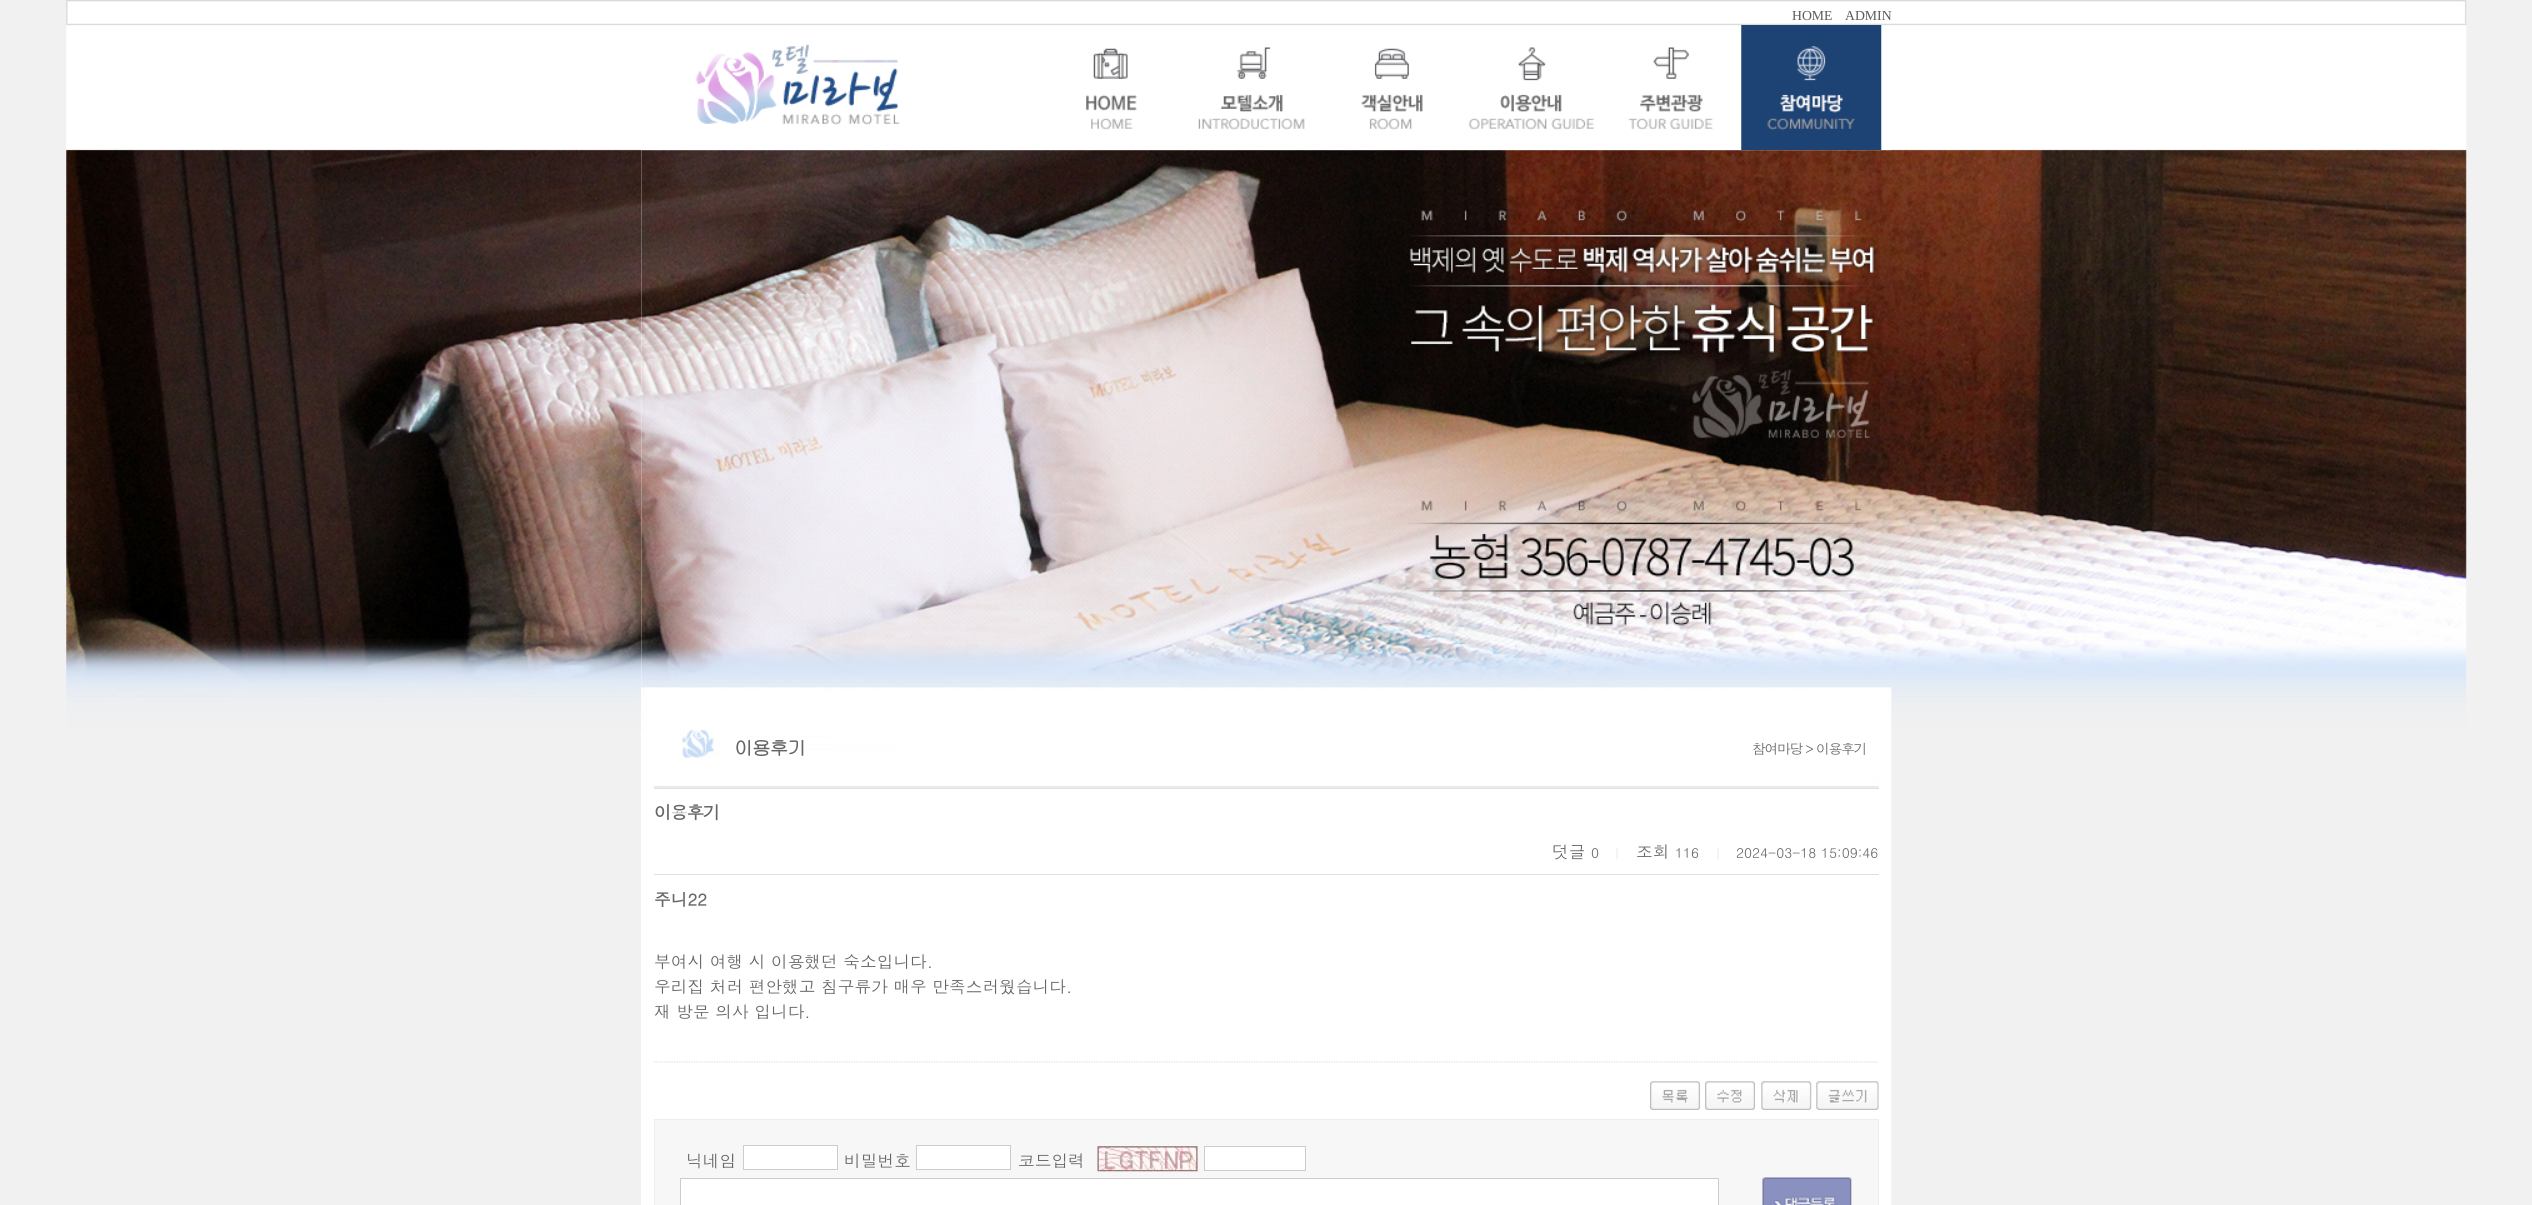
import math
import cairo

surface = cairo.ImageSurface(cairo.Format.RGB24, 2532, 1205)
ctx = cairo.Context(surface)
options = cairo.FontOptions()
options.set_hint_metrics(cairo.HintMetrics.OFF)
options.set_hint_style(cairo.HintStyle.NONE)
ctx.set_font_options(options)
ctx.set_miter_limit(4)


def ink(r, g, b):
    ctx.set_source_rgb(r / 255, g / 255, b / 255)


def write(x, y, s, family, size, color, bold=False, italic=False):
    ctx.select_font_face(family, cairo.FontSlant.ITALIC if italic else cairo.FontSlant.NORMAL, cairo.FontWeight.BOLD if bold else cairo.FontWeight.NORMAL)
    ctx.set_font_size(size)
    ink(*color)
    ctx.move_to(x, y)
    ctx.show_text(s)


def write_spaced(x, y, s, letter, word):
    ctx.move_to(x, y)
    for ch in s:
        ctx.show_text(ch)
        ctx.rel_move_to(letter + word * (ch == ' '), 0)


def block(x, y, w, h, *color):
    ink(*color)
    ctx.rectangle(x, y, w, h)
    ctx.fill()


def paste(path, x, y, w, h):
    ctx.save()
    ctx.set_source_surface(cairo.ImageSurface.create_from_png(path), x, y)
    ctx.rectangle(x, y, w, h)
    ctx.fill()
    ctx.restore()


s1 = dict(family="Liberation Serif", size=13.75, color=(91, 91, 91))
s2 = dict(family="Dotum", size=16.7, color=(102, 102, 102))
s3 = dict(family="Dotum", size=13.75, color=(102, 102, 102))
s4 = dict(family="Dotum", size=12, color=(223, 223, 223))
s5 = dict(family="Dotum", size=16.7, color=(102, 102, 102), bold=True)

ink(241, 241, 241)
ctx.paint()
paste("pic1.png", 66, 0, 2401, 1205)
block(641, 0, 1250, 1205, 255, 255, 255)
paste("pic2.png", 641, 0, 1251, 696)
write(1792, 20, "HOME", **s1)
write(1845, 20, "ADMIN", **s1)
paste("pic3.png", 696, 44, 204, 81)
paste("pic4.png", 1086, 48, 51, 82)
paste("pic5.png", 1198, 47, 107, 83)
paste("pic6.png", 1361, 48, 62, 82)
paste("pic7.png", 1468, 47, 126, 83)
paste("pic8.png", 1628, 47, 85, 83)
paste("pic9.png", 1741, 25, 141, 125)
paste("pic10.png", 641, 687, 1250, 101)
ctx.select_font_face("Gulim", cairo.FontSlant.NORMAL, cairo.FontWeight.BOLD)
ctx.set_font_size(19)
ink(102, 102, 102)
write_spaced(734, 755, "이용후기", -1.25, 0)
ctx.select_font_face("Dotum")
ctx.set_font_size(13.75)
write_spaced(1752, 754, "참여마당 > 이용후기", -1.25, 0)
block(654, 788, 1225, 1, 223, 223, 223)
block(654, 874, 1225, 1, 223, 223, 223)
ctx.select_font_face("Dotum", cairo.FontSlant.NORMAL, cairo.FontWeight.BOLD)
ctx.set_font_size(17.5)
ink(102, 102, 102)
write_spaced(654, 819, "이용후기", -1.25, 0)
write(1552, 858, "덧글", **s2)
write(1591, 858, "0", **s3)
write(1614, 858, "|", **s4)
write(1636, 858, "조회", **s2)
write(1675, 858, "116", **s3)
write(1715, 858, "|", **s4)
write(1736, 858, "2024-03-18 15:09:46", **s3)
write(654, 906, "주니22", **s5)
write(654, 968, "부여시 여행 시 이용했던 숙소입니다.", **s2)
write(654, 993, "우리집 처러 편안했고 침구류가 매우 만족스러웠습니다.", **s2)
write(654, 1018, "재 방문 의사 입니다.", **s2)
ctx.new_path()
ctx.move_to(654, 1062)
ctx.line_to(1879, 1062)
ink(223, 223, 223)
ctx.set_line_width(1.2)
ctx.set_dash([1.25, 1.25])
ctx.stroke()
paste("pic11.png", 1650, 1081, 50, 29)
paste("pic12.png", 1705, 1081, 50, 29)
paste("pic13.png", 1761, 1081, 51, 29)
paste("pic14.png", 1816, 1081, 63, 29)
ctx.rectangle(654.5, 1119.5, 1224, 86)
ink(237, 237, 237)
ctx.set_line_width(1)
ctx.set_dash([])
ctx.stroke()
block(655, 1120, 1223, 85, 247, 247, 247)
write(686, 1167, "닉네임", **s2)
ink(255, 255, 255)
ctx.rectangle(743.5, 1145.5, 94, 24)
ctx.fill_preserve()
ink(204, 204, 204)
ctx.stroke()
write(844, 1167, "비밀번호", **s2)
ink(255, 255, 255)
ctx.rectangle(916.5, 1145.5, 94, 24)
ctx.fill_preserve()
ink(204, 204, 204)
ctx.stroke()
write(1018, 1167, "코드입력", **s2)
paste("pic15.png", 1097, 1146, 101, 26)
ink(255, 255, 255)
ctx.rectangle(1204.5, 1146.5, 101, 24)
ctx.fill_preserve()
ink(204, 204, 204)
ctx.stroke()
ink(255, 255, 255)
ctx.rectangle(680.5, 1178.5, 1038, 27)
ctx.fill_preserve()
ink(204, 204, 204)
ctx.stroke()
paste("pic16.png", 1762, 1177, 90, 28)
surface.write_to_png("screenshot.png")
